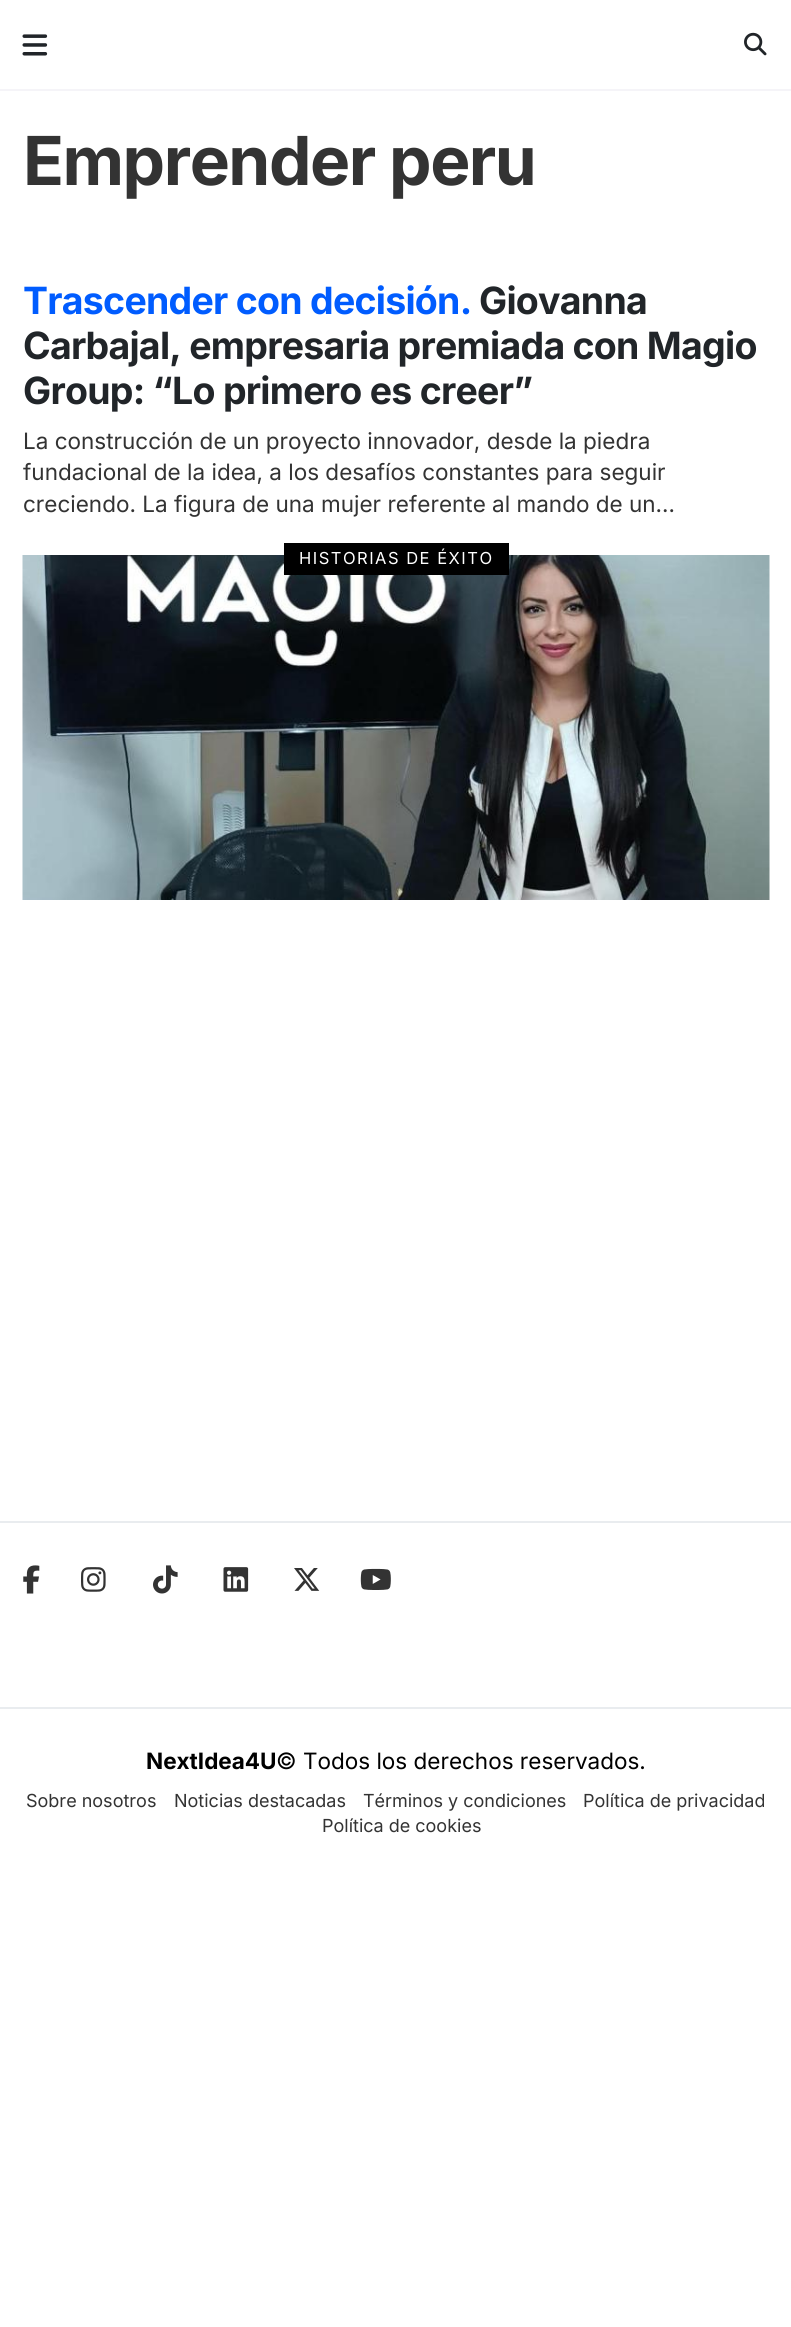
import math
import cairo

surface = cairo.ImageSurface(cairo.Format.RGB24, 791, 2327)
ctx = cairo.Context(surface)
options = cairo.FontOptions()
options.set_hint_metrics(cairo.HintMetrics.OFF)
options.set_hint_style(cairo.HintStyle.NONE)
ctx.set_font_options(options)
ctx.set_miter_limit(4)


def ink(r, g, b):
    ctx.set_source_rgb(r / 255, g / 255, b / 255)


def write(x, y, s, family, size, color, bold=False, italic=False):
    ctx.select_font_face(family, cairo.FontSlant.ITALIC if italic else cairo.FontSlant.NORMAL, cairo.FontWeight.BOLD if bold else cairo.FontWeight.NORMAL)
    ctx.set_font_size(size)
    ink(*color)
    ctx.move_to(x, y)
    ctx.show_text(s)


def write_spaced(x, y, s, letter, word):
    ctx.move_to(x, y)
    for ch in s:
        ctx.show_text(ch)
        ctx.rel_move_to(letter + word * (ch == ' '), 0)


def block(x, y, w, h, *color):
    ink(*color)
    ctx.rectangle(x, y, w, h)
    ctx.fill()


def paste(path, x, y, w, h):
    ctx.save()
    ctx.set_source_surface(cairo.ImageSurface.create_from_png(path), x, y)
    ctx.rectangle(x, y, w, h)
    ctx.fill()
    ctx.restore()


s1 = dict(family="Inter", size=22.5, color=(51, 51, 51))
s2 = dict(family="Inter", size=22.5, color=(0, 0, 0), bold=True)
s3 = dict(family="Inter", size=22.5, color=(0, 0, 0))
s4 = dict(family="Inter", size=18, color=(51, 51, 51))

ink(255, 255, 255)
ctx.paint()
block(0, 89, 791, 2, 245, 244, 248)
paste("pic1.png", 22, 34, 26, 22)
paste("pic2.png", 744, 32, 23, 24)
ctx.select_font_face("Inter", cairo.FontSlant.NORMAL, cairo.FontWeight.BOLD)
ctx.set_font_size(67.5)
ink(51, 51, 51)
write_spaced(23, 185, "Emprender peru", -1.5, 0)
ctx.set_font_size(37.5)
ink(0, 92, 255)
write_spaced(23, 314, "Trascender con decisión.", -0.75, 0)
ink(33, 37, 41)
write_spaced(479, 314, "Giovanna", -0.75, 0)
write_spaced(23, 359, "Carbajal, empresaria premiada con Magio", -0.75, 0)
write_spaced(23, 404, "Group: “Lo primero es creer”", -0.75, 0)
write(23, 449, "La construcción de un proyecto innovador, desde la piedra", **s1)
ctx.save()
ctx.rectangle(23, 425, 747, 94)
ctx.clip()
write(23, 480, "fundacional de la idea, a los desafíos constantes para seguir", **s1)
ctx.restore()
write(23, 512, "creciendo. La figura de una mujer referente al mando de un…", **s1)
paste("pic3.png", 22, 555, 748, 345)
block(284, 543, 225, 32, 0, 0, 0)
ctx.set_font_size(16.5)
ink(255, 255, 255)
write_spaced(299, 564, "HISTORIAS DE ÉXITO", 1.5, 0)
block(0, 1521, 791, 2, 233, 236, 239)
block(0, 1707, 791, 2, 233, 236, 239)
paste("pic4.png", 23, 1565, 17, 29)
paste("pic5.png", 81, 1567, 25, 25)
paste("pic6.png", 153, 1565, 25, 29)
paste("pic7.png", 223, 1567, 26, 25)
paste("pic8.png", 294, 1568, 26, 23)
paste("pic9.png", 360, 1568, 31, 22)
write(146, 1769, "NextIdea4U", **s2)
write(276, 1769, "© Todos los derechos reservados.", **s3)
write(26, 1807, "Sobre nosotros", **s4)
write(174, 1807, "Noticias destacadas", **s4)
write(363, 1807, "Términos y condiciones", **s4)
write(583, 1807, "Política de privacidad", **s4)
write(322, 1832, "Política de cookies", **s4)
surface.write_to_png("screenshot.png")
